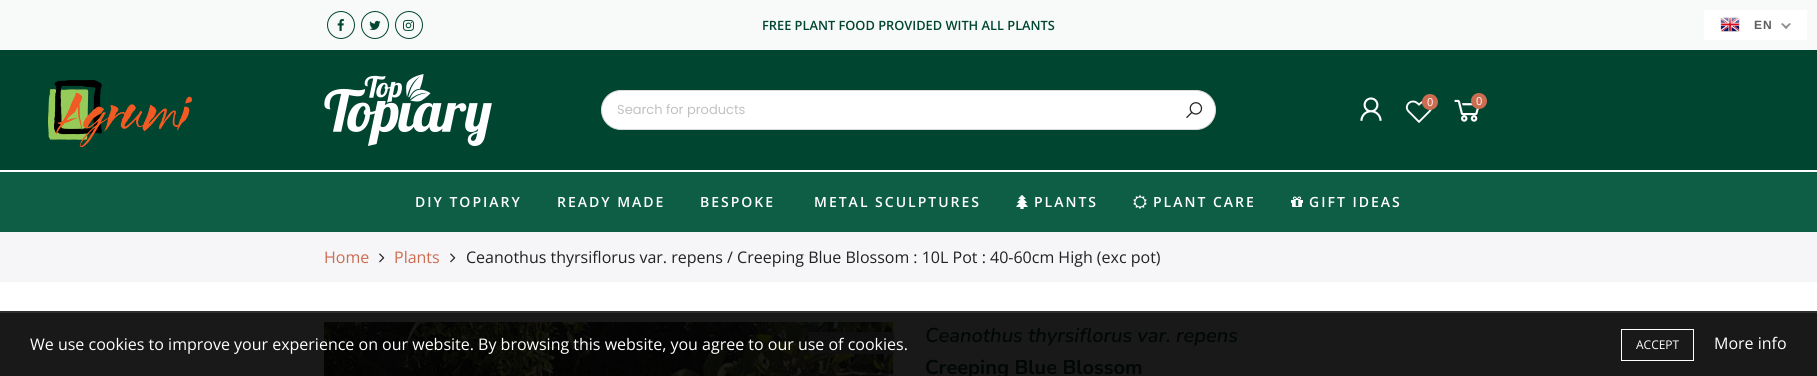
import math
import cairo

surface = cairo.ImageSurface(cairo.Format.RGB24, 1817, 376)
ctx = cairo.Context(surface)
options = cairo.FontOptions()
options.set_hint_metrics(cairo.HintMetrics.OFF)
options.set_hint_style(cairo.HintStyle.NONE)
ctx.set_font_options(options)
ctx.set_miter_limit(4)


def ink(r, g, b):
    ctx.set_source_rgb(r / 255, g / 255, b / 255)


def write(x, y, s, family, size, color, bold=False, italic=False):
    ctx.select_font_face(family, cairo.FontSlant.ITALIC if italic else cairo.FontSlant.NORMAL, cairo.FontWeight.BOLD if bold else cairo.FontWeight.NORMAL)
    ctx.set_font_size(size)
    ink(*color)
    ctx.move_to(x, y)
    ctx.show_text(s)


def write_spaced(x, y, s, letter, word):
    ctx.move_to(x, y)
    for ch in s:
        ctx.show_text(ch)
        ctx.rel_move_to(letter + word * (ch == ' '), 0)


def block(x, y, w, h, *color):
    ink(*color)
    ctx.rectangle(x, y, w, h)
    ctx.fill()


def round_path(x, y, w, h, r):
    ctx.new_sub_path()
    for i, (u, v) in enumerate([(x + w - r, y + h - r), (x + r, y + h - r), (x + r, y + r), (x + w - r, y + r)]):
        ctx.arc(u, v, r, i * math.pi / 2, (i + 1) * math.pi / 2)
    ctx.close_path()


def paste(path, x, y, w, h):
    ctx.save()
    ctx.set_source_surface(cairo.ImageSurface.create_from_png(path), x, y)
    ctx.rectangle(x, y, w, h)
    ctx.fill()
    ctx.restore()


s1 = dict(family="Open Sans SemiBold", size=12.8, color=(0, 69, 48))
s2 = dict(family="Open Sans", size=11, color=(255, 255, 255))
s3 = dict(family="Poppins", size=13, color=(193, 193, 193))
s4 = dict(family="Open Sans", size=16, color=(204, 108, 81))
s5 = dict(family="Open Sans", size=16, color=(34, 34, 34))
s6 = dict(family="Nunito SemiBold", size=20, color=(0, 7, 5), italic=True)
s7 = dict(family="Nunito", size=20, color=(0, 7, 5), bold=True)
s8 = dict(family="Open Sans", size=16, color=(255, 255, 255))
s9 = dict(family="Open Sans", size=12, color=(255, 255, 255))

ink(255, 255, 255)
ctx.paint()
block(0, 313, 1817, 63, 25, 25, 25)
block(0, 0, 1817, 50, 248, 250, 250)
ctx.arc(341, 25, 13.5, 0, 2 * math.pi)
ink(0, 69, 48)
ctx.set_line_width(1)
ctx.stroke()
paste("pic1.png", 337, 19, 7, 12)
ctx.arc(375, 25, 13.5, 0, 2 * math.pi)
ctx.stroke()
paste("pic2.png", 369, 20, 12, 10)
ctx.arc(409, 25, 13.5, 0, 2 * math.pi)
ctx.stroke()
paste("pic3.png", 403, 19, 11, 12)
write(762, 30, "FREE PLANT FOOD PROVIDED WITH ALL PLANTS", **s1)
block(0, 50, 1817, 120, 0, 69, 48)
paste("pic4.png", 48, 80, 144, 67)
paste("pic5.png", 324, 74, 168, 72)
paste("pic6.png", 1360, 97, 22, 24)
paste("pic7.png", 1405, 100, 27, 23)
ink(204, 108, 81)
ctx.arc(1430, 102, 8, 0, 2 * math.pi)
ctx.fill()
write(1427, 106, "0", **s2)
paste("pic8.png", 1454, 99, 25, 23)
ink(204, 108, 81)
ctx.arc(1479, 101, 8, 0, 2 * math.pi)
ctx.fill()
write(1476, 105, "0", **s2)
round_path(601.5, 90.5, 614, 39, 19.5)
ctx.fill_preserve()
ink(218, 218, 218)
ctx.stroke()
write(617, 114, "Search for products", **s3)
paste("pic9.png", 1186, 102, 17, 17)
block(0, 172, 1817, 60, 14, 94, 70)
ctx.select_font_face("Open Sans SemiBold")
ctx.set_font_size(14)
ink(255, 255, 255)
write_spaced(415, 207, "DIY TOPIARY", 2, 0)
write_spaced(557, 207, "READY MADE", 2, 0)
write_spaced(700, 207, "BESPOKE", 2, 0)
write_spaced(814, 207, "METAL SCULPTURES", 2, 0)
paste("pic10.png", 1016, 195, 12, 14)
write_spaced(1034, 207, "PLANTS", 2, 0)
paste("pic11.png", 1133, 195, 14, 14)
write_spaced(1153, 207, "PLANT CARE", 2, 0)
paste("pic12.png", 1291, 196, 12, 11)
write_spaced(1309, 207, "GIFT IDEAS", 2, 0)
block(0, 232, 1817, 50, 246, 246, 248)
write(324, 263, "Home", **s4)
paste("pic13.png", 379, 253, 6, 10)
write(394, 263, "Plants", **s4)
paste("pic13.png", 450, 253, 6, 10)
write(466, 263, "Ceanothus thyrsiflorus var. repens / Creeping Blue Blossom : 10L Pot : 40-60cm High (exc pot)", **s5)
paste("pic14.png", 324, 322, 569, 54)
block(808, 332, 86, 22, 15, 15, 15)
write(925, 342, "Ceanothus thyrsiflorus var. repens", **s6)
write(925, 374, "Creeping Blue Blossom", **s7)
block(0, 311, 1817, 2, 48, 48, 48)
write(30, 350, "We use cookies to improve your experience on our website. By browsing this website, you agree to our use of cookies.", **s8)
ctx.rectangle(1621.5, 329.5, 72, 31)
ctx.stroke()
write(1636, 349, "ACCEPT", **s9)
write(1714, 349, "More info", **s8)
block(1704, 10, 103, 30, 255, 255, 255)
paste("pic15.png", 1720, 17, 20, 15)
ctx.select_font_face("Liberation Sans", cairo.FontSlant.NORMAL, cairo.FontWeight.BOLD)
ctx.set_font_size(12)
ink(92, 92, 92)
write_spaced(1754, 29, "EN", 1, 0)
ink(144, 144, 144)
ctx.new_path()
ctx.move_to(1789.5, 23)
ctx.line_to(1791, 24)
ctx.line_to(1786, 29)
ctx.line_to(1784.5, 27.5)
ctx.close_path()
ctx.fill()
ctx.new_path()
ctx.move_to(1782.5, 23)
ctx.line_to(1787.5, 27.5)
ctx.line_to(1786, 29)
ctx.line_to(1781, 24)
ctx.close_path()
ctx.fill()
surface.write_to_png("screenshot.png")
